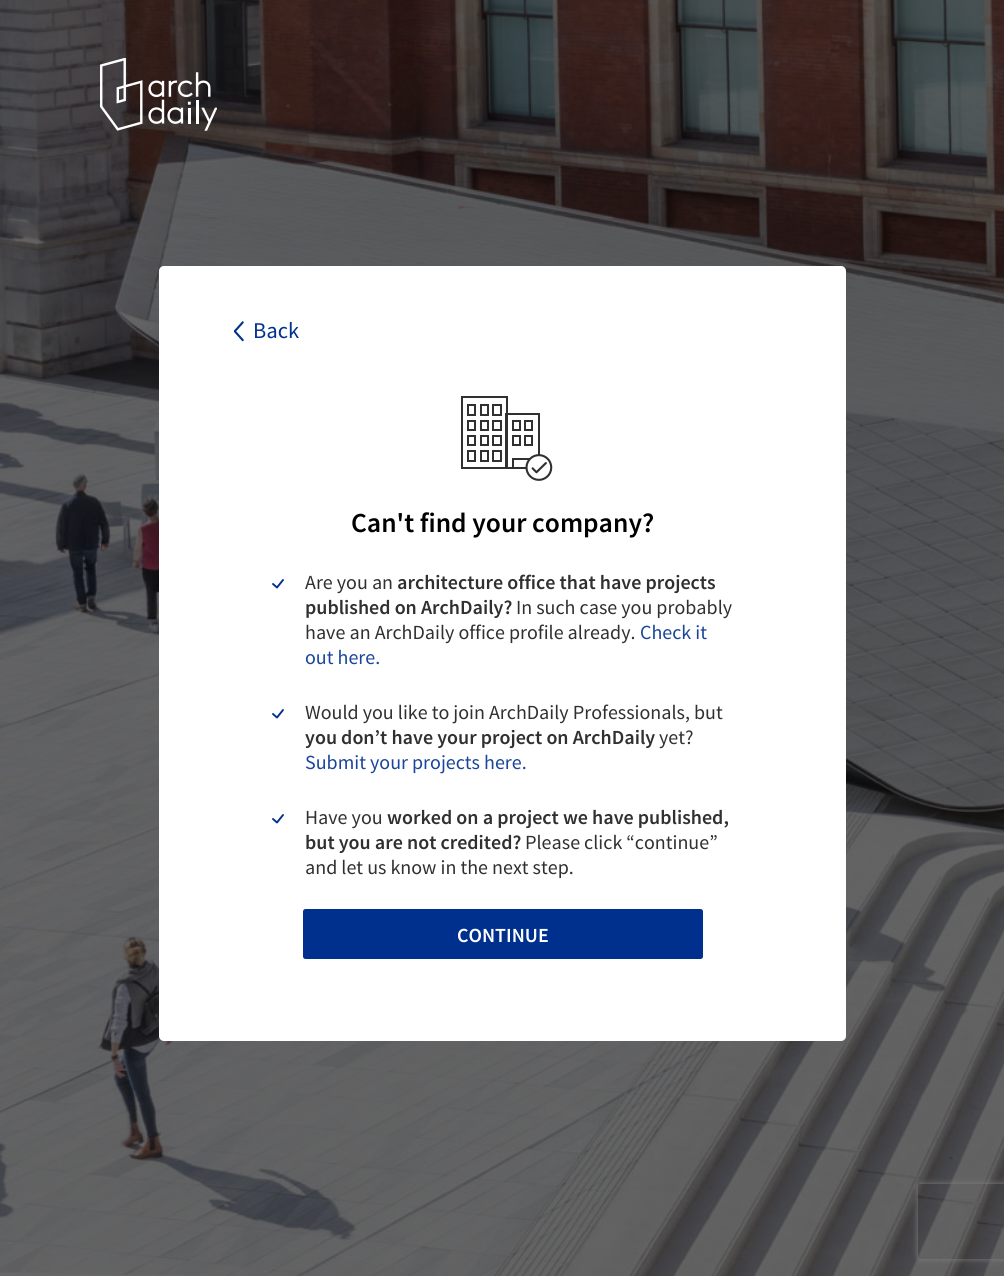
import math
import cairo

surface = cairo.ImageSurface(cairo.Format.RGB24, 1004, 1276)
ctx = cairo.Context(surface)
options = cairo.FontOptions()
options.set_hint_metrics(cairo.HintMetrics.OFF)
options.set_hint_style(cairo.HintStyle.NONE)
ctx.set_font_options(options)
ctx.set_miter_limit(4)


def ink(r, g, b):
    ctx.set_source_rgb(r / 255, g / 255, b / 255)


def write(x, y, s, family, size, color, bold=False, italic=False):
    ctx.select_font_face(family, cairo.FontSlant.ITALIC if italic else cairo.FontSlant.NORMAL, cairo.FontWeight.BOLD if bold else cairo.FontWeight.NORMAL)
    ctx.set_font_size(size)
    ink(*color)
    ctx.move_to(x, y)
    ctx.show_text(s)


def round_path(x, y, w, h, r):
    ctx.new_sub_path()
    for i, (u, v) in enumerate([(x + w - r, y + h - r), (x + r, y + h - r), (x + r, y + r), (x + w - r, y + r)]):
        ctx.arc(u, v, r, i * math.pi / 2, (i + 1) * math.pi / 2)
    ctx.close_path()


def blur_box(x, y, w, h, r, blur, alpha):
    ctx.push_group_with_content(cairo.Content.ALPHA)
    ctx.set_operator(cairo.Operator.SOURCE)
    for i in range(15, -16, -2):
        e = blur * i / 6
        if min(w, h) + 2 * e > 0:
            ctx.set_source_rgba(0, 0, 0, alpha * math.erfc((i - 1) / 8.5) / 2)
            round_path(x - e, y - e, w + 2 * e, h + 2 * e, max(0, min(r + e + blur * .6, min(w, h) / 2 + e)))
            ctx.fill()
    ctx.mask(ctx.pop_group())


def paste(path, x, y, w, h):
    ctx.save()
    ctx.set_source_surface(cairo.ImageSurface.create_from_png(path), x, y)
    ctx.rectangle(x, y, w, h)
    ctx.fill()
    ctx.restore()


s1 = dict(family="Source Sans Pro", size=22.5, color=(0, 48, 142))
s2 = dict(family="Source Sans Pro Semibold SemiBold", size=27.5, color=(0, 0, 0))
s3 = dict(family="Source Sans Pro", size=20, color=(48, 48, 48))
s4 = dict(family="Source Sans Pro Semibold SemiBold", size=20, color=(48, 48, 48))
s5 = dict(family="Source Sans Pro", size=20, color=(26, 69, 153))
s6 = dict(family="Source Sans Pro Semibold SemiBold", size=20, color=(255, 255, 255))

ink(255, 255, 255)
ctx.paint()
paste("pic1.png", 0, 0, 1004, 1276)
paste("pic2.png", 100, 58, 117, 73)
ink(255, 255, 255)
round_path(159, 266, 687, 775, 5)
ctx.fill()
paste("pic3.png", 234, 321, 10, 21)
write(253, 338, "Back", **s1)
paste("pic4.png", 461, 396, 92, 85)
write(351, 532, "Can't find your company?", **s2)
ctx.new_path()
ctx.move_to(273, 584)
ctx.line_to(277, 587.5)
ctx.move_to(283, 580)
ctx.line_to(277, 587.5)
ink(0, 48, 142)
ctx.set_line_width(1.9)
ctx.set_line_cap(cairo.LineCap.ROUND)
ctx.stroke()
write(305, 589, "Are you an", **s3)
write(397, 589, "architecture office that have projects", **s4)
write(305, 614, "published on ArchDaily?", **s4)
write(516, 614, "In such case you probably", **s3)
write(305, 639, "have an ArchDaily office profile already.", **s3)
write(640, 639, "Check it", **s5)
write(305, 664, "out here.", **s5)
ctx.new_path()
ctx.move_to(273, 714)
ctx.line_to(277, 717.5)
ctx.move_to(283, 710)
ctx.line_to(277, 717.5)
ink(0, 48, 142)
ctx.stroke()
write(305, 719, "Would you like to join ArchDaily Professionals, but", **s3)
write(305, 744, "you don’t have your project on ArchDaily", **s4)
write(659, 744, "yet?", **s3)
write(305, 769, "Submit your projects here.", **s5)
ctx.new_path()
ctx.move_to(273, 819)
ctx.line_to(277, 822.5)
ctx.move_to(283, 815)
ctx.line_to(277, 822.5)
ink(0, 48, 142)
ctx.stroke()
write(305, 824, "Have you", **s3)
write(387, 824, "worked on a project we have published,", **s4)
write(305, 849, "but you are not credited?", **s4)
write(525, 849, "Please click “continue”", **s3)
write(305, 874, "and let us know in the next step.", **s3)
ink(0, 48, 142)
round_path(303, 909, 400, 50, 2.5)
ctx.fill()
write(457, 942, "CONTINUE", **s6)
ctx.save()
ctx.set_fill_rule(cairo.FillRule.EVEN_ODD)
ctx.new_path()
ctx.move_to(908, 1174)
ctx.line_to(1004, 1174)
ctx.line_to(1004, 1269)
ctx.line_to(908, 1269)
ctx.close_path()
ctx.move_to(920.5, 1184)
ctx.line_to(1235.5, 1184)
ctx.curve_to(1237, 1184, 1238, 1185, 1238, 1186.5)
ctx.line_to(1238, 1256.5)
ctx.curve_to(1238, 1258, 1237, 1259, 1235.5, 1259)
ctx.line_to(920.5, 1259)
ctx.curve_to(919, 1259, 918, 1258, 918, 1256.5)
ctx.line_to(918, 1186.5)
ctx.curve_to(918, 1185, 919, 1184, 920.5, 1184)
ctx.close_path()
ctx.clip()
ink(128, 128, 128)
blur_box(918, 1184, 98, 75, 2.5, 3, 1)
ctx.restore()
surface.write_to_png("screenshot.png")
